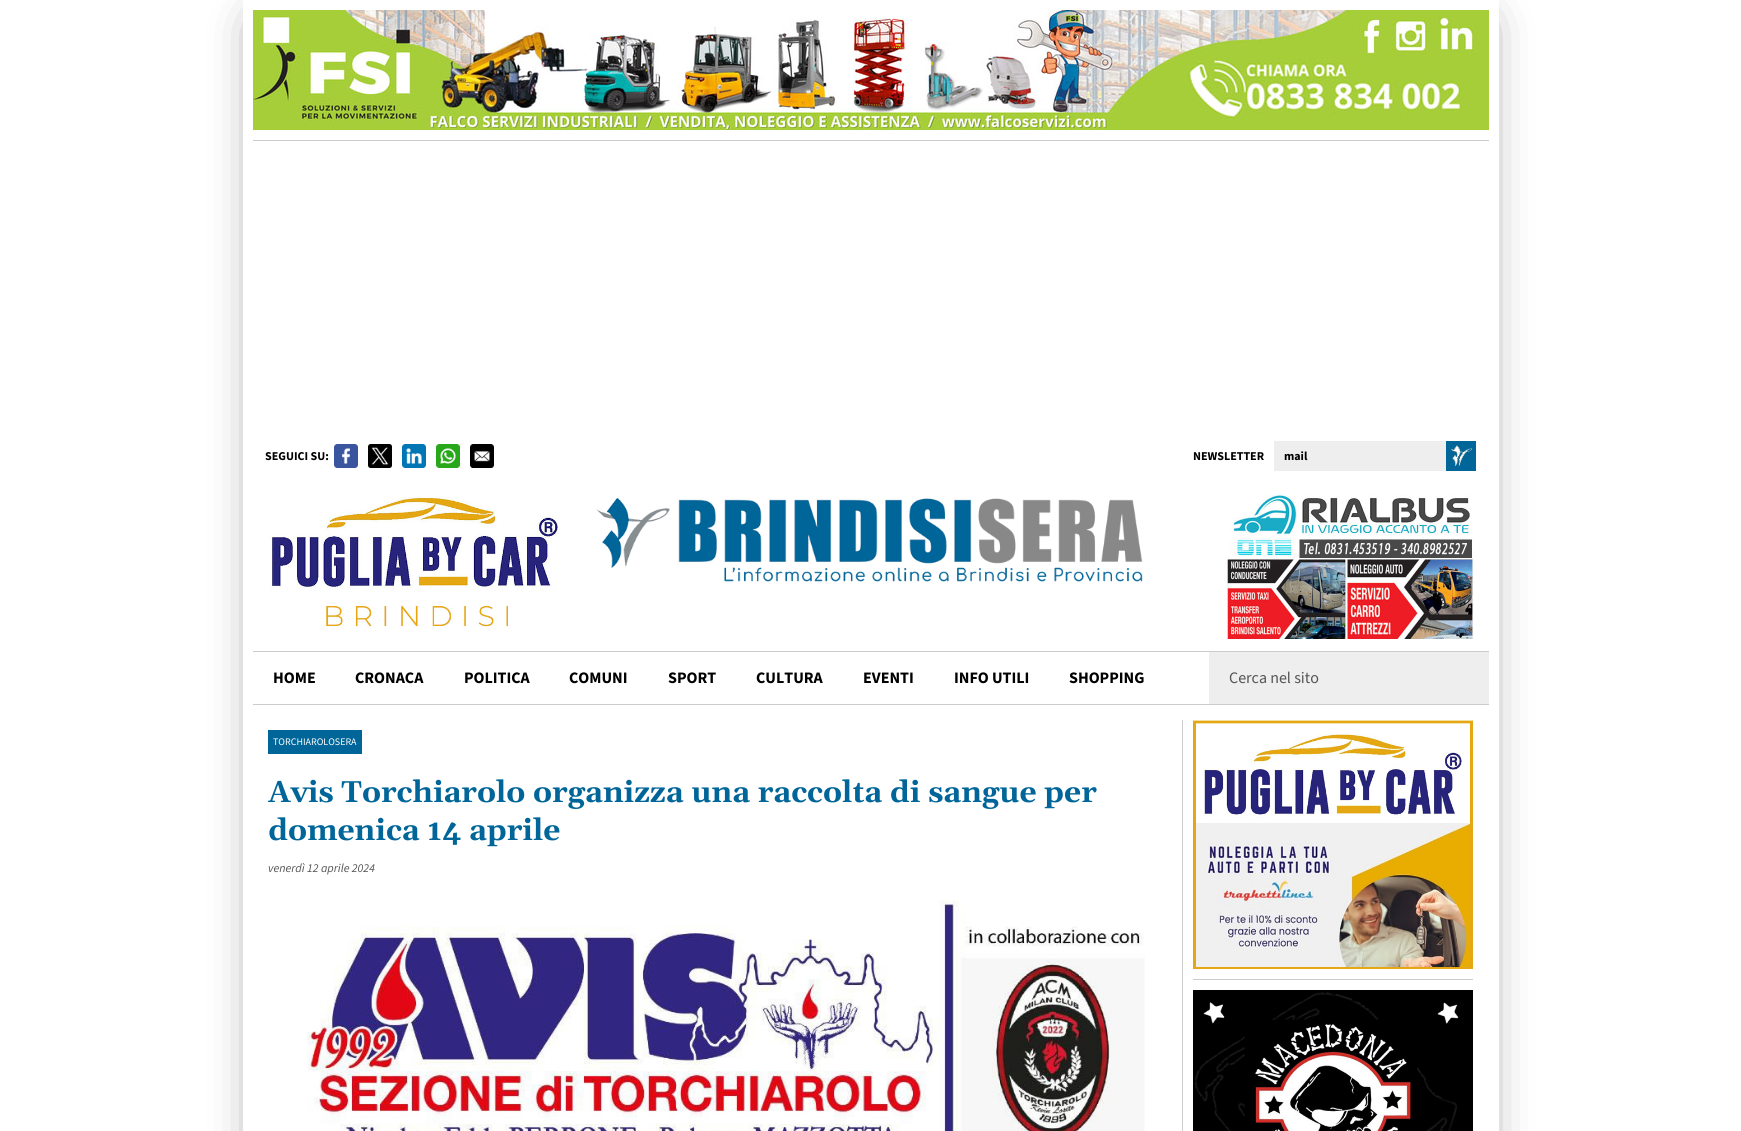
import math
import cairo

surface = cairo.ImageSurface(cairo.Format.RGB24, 1741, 1131)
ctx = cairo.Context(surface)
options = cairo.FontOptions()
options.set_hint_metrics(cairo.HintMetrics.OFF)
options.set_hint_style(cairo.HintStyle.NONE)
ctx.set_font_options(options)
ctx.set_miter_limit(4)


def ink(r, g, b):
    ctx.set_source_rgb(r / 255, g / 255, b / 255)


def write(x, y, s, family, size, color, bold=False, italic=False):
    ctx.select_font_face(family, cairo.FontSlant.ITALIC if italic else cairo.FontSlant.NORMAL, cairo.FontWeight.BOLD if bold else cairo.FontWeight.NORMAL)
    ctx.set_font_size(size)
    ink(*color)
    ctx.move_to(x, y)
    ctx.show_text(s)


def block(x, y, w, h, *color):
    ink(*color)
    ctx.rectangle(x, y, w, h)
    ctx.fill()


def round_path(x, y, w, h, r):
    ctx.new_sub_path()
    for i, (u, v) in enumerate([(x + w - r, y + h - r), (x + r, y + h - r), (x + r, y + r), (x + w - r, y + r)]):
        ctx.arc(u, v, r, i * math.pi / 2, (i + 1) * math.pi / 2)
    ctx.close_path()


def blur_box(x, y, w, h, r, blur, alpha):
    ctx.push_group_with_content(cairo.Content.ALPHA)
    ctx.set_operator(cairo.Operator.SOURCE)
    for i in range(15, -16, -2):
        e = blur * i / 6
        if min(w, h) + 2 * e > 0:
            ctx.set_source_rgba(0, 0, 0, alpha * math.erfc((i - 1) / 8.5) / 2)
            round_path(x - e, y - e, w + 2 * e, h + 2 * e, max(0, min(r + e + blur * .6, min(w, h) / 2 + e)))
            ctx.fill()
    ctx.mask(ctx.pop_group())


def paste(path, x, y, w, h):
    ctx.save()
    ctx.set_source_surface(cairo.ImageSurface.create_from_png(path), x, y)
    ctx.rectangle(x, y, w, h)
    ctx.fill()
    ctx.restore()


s1 = dict(family="Source Sans 3", size=12, color=(0, 0, 0), bold=True)
s2 = dict(family="Source Sans 3", size=16, color=(0, 0, 0), bold=True)
s3 = dict(family="Source Sans 3", size=16, color=(85, 85, 85))
s4 = dict(family="Source Sans 3", size=10, color=(255, 255, 255))
s5 = dict(family="Gelasio", size=30, color=(0, 101, 152), bold=True)
s6 = dict(family="Source Sans 3", size=12, color=(85, 85, 85), italic=True)

ink(255, 255, 255)
ctx.paint()
ctx.save()
ctx.set_fill_rule(cairo.FillRule.EVEN_ODD)
ctx.new_path()
ctx.move_to(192, 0)
ctx.line_to(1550, 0)
ctx.line_to(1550, 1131)
ctx.line_to(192, 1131)
ctx.close_path()
ctx.move_to(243, 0)
ctx.line_to(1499, 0)
ctx.line_to(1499, 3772)
ctx.line_to(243, 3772)
ctx.close_path()
ctx.clip()
ink(0, 0, 0)
blur_box(268, 25, 1206, 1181, 0, 25, 0.75)
ctx.restore()
block(253, 140, 1236, 1, 204, 204, 204)
paste("pic1.png", 253, 10, 1236, 120)
write(265, 460, "SEGUICI SU:", **s1)
paste("pic2.png", 334, 444, 24, 24)
paste("pic3.png", 368, 444, 24, 24)
paste("pic4.png", 402, 444, 24, 24)
paste("pic5.png", 436, 444, 24, 24)
paste("pic6.png", 470, 444, 24, 24)
paste("pic7.png", 269, 497, 290, 131)
write(1193, 460, "NEWSLETTER", **s1)
block(1274, 441, 172, 30, 238, 238, 238)
write(1284, 460, "mail", **s1)
paste("pic8.png", 1446, 441, 30, 30)
paste("pic9.png", 1226, 495, 248, 144)
paste("pic10.png", 596, 498, 547, 84)
block(253, 651, 1236, 1, 204, 204, 204)
block(253, 704, 1236, 1, 204, 204, 204)
write(273, 683, "HOME", **s2)
write(355, 683, "CRONACA", **s2)
write(464, 683, "POLITICA", **s2)
write(569, 683, "COMUNI", **s2)
write(668, 683, "SPORT", **s2)
write(756, 683, "CULTURA", **s2)
write(863, 683, "EVENTI", **s2)
write(954, 683, "INFO UTILI", **s2)
write(1069, 683, "SHOPPING", **s2)
block(1209, 652, 280, 52, 238, 238, 238)
write(1229, 683, "Cerca nel sito", **s3)
block(1182, 720, 1, 411, 204, 204, 204)
block(268, 730, 94, 24, 0, 101, 152)
write(273, 745, "TORCHIAROLOSERA", **s4)
write(268, 802, "Avis Torchiarolo organizza una raccolta di sangue per", **s5)
write(268, 840, "domenica 14 aprile", **s5)
write(268, 872, "venerdì 12 aprile 2024", **s6)
paste("pic11.png", 307, 900, 838, 231)
block(1193, 979, 280, 1, 204, 204, 204)
paste("pic12.png", 1193, 720, 280, 249)
paste("pic13.png", 1193, 990, 280, 141)
surface.write_to_png("screenshot.png")
